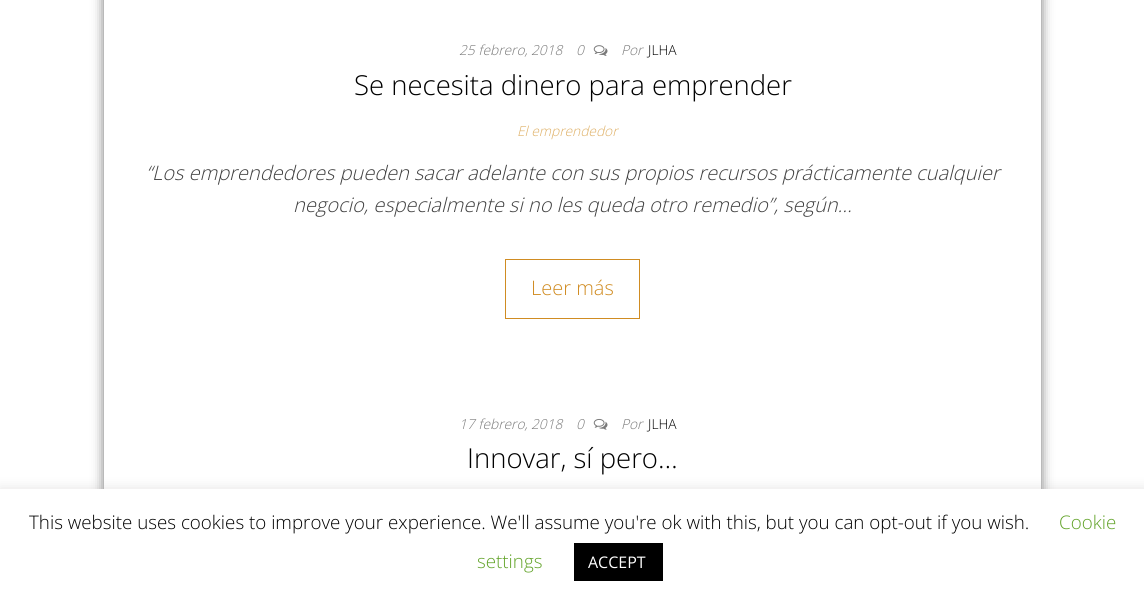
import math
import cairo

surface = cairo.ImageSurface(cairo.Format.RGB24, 1144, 602)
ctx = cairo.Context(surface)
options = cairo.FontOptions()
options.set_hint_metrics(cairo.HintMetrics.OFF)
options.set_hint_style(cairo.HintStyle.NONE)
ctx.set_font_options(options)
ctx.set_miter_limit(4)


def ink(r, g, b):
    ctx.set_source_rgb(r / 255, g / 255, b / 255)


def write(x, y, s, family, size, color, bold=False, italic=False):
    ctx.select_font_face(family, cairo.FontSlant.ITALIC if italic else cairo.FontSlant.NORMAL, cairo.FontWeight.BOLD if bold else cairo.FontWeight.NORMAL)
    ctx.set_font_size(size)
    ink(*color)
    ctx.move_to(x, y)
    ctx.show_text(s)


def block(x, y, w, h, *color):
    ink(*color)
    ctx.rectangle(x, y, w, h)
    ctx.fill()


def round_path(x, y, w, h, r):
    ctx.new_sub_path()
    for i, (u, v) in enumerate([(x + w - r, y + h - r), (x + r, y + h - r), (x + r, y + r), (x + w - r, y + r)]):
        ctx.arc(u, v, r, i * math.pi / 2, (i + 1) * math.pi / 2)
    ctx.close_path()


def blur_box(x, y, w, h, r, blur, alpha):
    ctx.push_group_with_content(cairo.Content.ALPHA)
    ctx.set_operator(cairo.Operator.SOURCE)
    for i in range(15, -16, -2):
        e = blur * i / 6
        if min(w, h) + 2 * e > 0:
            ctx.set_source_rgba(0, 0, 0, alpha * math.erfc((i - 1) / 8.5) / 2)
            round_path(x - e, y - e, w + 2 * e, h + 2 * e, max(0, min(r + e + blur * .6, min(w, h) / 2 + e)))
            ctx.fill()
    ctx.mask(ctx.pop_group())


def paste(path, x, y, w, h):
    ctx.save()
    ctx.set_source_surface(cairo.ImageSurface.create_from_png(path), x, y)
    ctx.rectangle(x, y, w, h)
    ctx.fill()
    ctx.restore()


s1 = dict(family="Open Sans Light", size=13.75, color=(121, 121, 121), italic=True)
s2 = dict(family="Open Sans Light", size=13.75, color=(0, 0, 0))
s3 = dict(family="Open Sans Light", size=27.5, color=(0, 0, 0))
s4 = dict(family="Open Sans Light", size=13.75, color=(222, 175, 100), italic=True)
s5 = dict(family="Open Sans Light", size=20, color=(64, 64, 64), italic=True)
s6 = dict(family="Open Sans Light", size=20, color=(208, 140, 34))
s7 = dict(family="Open Sans Light", size=18.75, color=(0, 0, 0))
s8 = dict(family="Open Sans Light", size=18.75, color=(98, 163, 41))
s9 = dict(family="Open Sans", size=16, color=(255, 255, 255))

ink(255, 255, 255)
ctx.paint()
ctx.save()
ctx.set_fill_rule(cairo.FillRule.EVEN_ODD)
ctx.new_path()
ctx.move_to(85, 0)
ctx.line_to(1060, 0)
ctx.line_to(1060, 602)
ctx.line_to(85, 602)
ctx.close_path()
ctx.move_to(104, -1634)
ctx.line_to(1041, -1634)
ctx.line_to(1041, 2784)
ctx.line_to(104, 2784)
ctx.close_path()
ctx.clip()
ink(0, 0, 0)
blur_box(104, -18, 937, 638, 0, 6, 0.55)
ctx.restore()
write(459, 55, "25 febrero, 2018", **s1)
write(576, 55, "0", **s1)
paste("pic1.png", 593, 45, 15, 11)
write(621, 55, "Por", **s1)
write(648, 55, "JLHA", **s2)
write(354, 95, "Se necesita dinero para emprender", **s3)
write(517, 136, "El emprendedor", **s4)
write(146, 180, "“Los emprendedores pueden sacar adelante con sus propios recursos prácticamente cualquier", **s5)
write(293, 212, "negocio, especialmente si no les queda otro remedio”, según…", **s5)
ctx.rectangle(505.5, 259.5, 134, 59)
ink(208, 140, 34)
ctx.set_line_width(1)
ctx.stroke()
write(531, 295, "Leer más", **s6)
write(459, 429, "17 febrero, 2018", **s1)
write(576, 429, "0", **s1)
paste("pic2.png", 593, 418, 15, 12)
write(621, 429, "Por", **s1)
write(648, 429, "JLHA", **s2)
write(467, 468, "Innovar, sí pero…", **s3)
ink(172, 171, 171)
blur_box(0, 488, 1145, 113, 0, 6, 0.3)
block(0, 489, 1144, 113, 255, 255, 255)
write(29, 529, "This website uses cookies to improve your experience. We'll assume you're ok with this, but you can opt-out if you wish.", **s7)
write(1059, 529, "Cookie", **s8)
write(477, 568, "settings", **s8)
block(574, 543, 89, 38, 0, 0, 0)
write(588, 568, "ACCEPT", **s9)
surface.write_to_png("screenshot.png")
